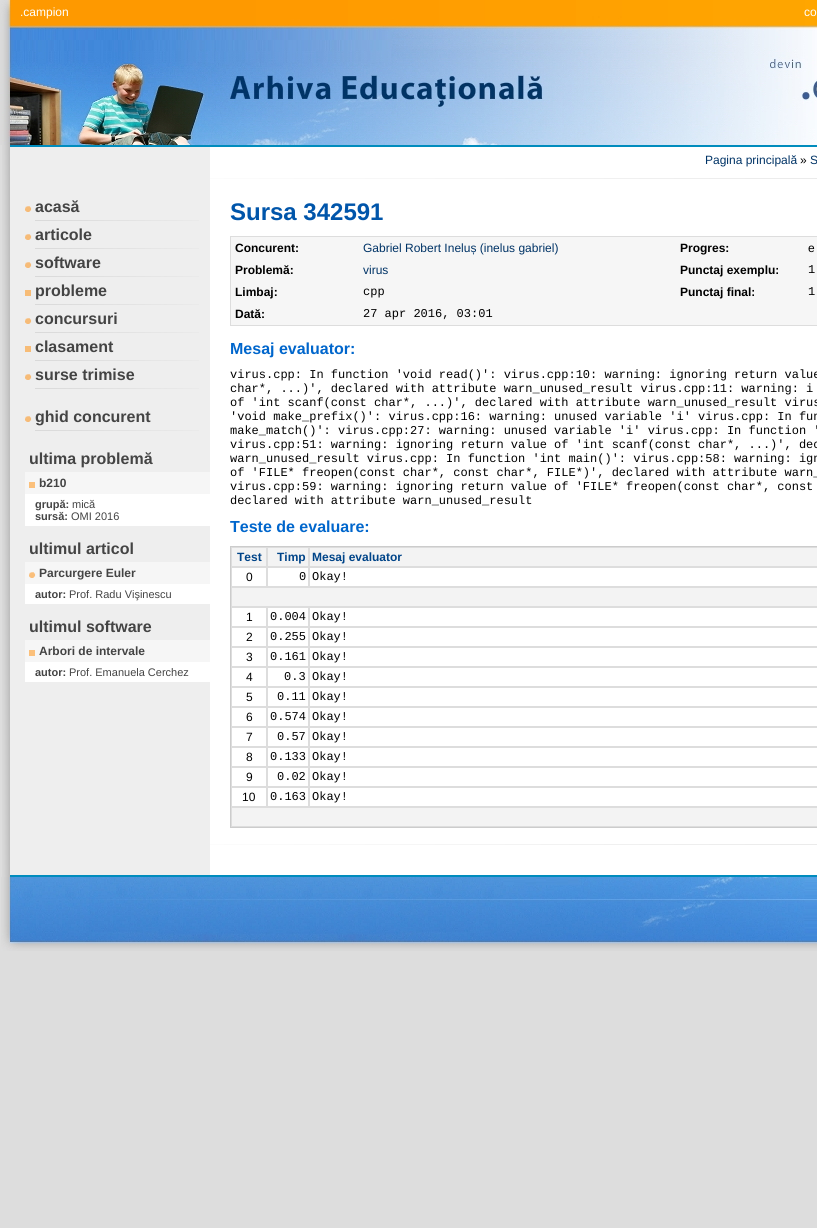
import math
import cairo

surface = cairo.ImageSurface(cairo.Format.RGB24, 817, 1228)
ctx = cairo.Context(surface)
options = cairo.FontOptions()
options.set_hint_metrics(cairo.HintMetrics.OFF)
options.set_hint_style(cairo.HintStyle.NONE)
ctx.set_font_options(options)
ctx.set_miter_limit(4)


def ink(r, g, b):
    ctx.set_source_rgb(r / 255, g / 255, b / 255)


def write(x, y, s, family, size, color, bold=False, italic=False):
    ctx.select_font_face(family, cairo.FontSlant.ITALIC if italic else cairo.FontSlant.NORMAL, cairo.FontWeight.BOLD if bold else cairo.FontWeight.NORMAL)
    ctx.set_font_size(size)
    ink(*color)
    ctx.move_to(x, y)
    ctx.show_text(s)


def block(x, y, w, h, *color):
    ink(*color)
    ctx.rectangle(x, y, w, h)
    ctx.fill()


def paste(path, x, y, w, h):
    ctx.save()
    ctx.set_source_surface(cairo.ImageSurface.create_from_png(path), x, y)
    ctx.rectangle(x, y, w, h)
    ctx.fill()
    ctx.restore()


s1 = dict(family="Liberation Sans", size=12, color=(255, 255, 255))
s2 = dict(family="Liberation Sans", size=12, color=(0, 51, 102))
s3 = dict(family="Liberation Sans", size=12, color=(0, 0, 0))
s4 = dict(family="Liberation Sans", size=16, color=(68, 68, 68), bold=True)
s5 = dict(family="Liberation Sans", size=12, color=(68, 68, 68), bold=True)
s6 = dict(family="Liberation Sans", size=11, color=(68, 68, 68), bold=True)
s7 = dict(family="Liberation Sans", size=11, color=(68, 68, 68))
s8 = dict(family="Liberation Sans", size=24, color=(0, 85, 170), bold=True)
s9 = dict(family="Liberation Sans", size=12, color=(0, 0, 0), bold=True)
s10 = dict(family="Liberation Mono", size=12, color=(0, 0, 0))
s11 = dict(family="Liberation Sans", size=16, color=(0, 102, 204), bold=True)
s12 = dict(family="Liberation Sans", size=12, color=(0, 68, 136), bold=True)

ink(221, 221, 221)
ctx.paint()
paste("pic1.png", 0, 0, 817, 145)
write(20, 16, ".campion", **s1)
write(804, 16, "co", **s1)
paste("pic2.png", 2, 145, 8, 732)
paste("pic3.png", 10, 145, 200, 53)
paste("pic4.png", 210, 145, 607, 53)
write(705, 164, "Pagina principală", **s2)
write(800, 164, "»", **s3)
write(810, 164, "S", **s2)
block(10, 198, 200, 644, 238, 238, 238)
paste("pic5.png", 35, 220, 164, 1)
paste("pic6.png", 25, 206, 7, 6)
write(35, 212, "acasă", **s4)
paste("pic5.png", 35, 248, 164, 1)
paste("pic6.png", 25, 234, 7, 6)
write(35, 240, "articole", **s4)
paste("pic5.png", 35, 276, 164, 1)
paste("pic6.png", 25, 262, 7, 6)
write(35, 268, "software", **s4)
paste("pic5.png", 35, 304, 164, 1)
write(35, 296, "probleme", **s4)
block(25, 290, 6, 6, 247, 188, 119)
paste("pic5.png", 35, 332, 164, 1)
paste("pic6.png", 25, 318, 7, 6)
write(35, 324, "concursuri", **s4)
paste("pic5.png", 35, 360, 164, 1)
write(35, 352, "clasament", **s4)
block(25, 346, 6, 6, 247, 188, 119)
paste("pic5.png", 35, 388, 164, 1)
paste("pic6.png", 25, 374, 7, 6)
write(35, 380, "surse trimise", **s4)
paste("pic5.png", 35, 430, 164, 1)
paste("pic6.png", 25, 416, 7, 6)
write(35, 422, "ghid concurent", **s4)
write(29, 464, "ultima problemă", **s4)
block(25, 472, 185, 22, 246, 246, 246)
write(39, 487, "b210", **s5)
block(29, 482, 6, 6, 251, 192, 123)
block(25, 494, 185, 32, 255, 255, 255)
write(35, 508, "grupă:", **s6)
write(72, 508, "mică", **s7)
write(35, 520, "sursă:", **s6)
write(71, 520, "OMI 2016", **s7)
write(29, 554, "ultimul articol", **s4)
block(25, 562, 185, 22, 246, 246, 246)
paste("pic7.png", 29, 572, 7, 6)
write(39, 577, "Parcurgere Euler", **s5)
block(25, 584, 185, 20, 255, 255, 255)
write(35, 598, "autor:", **s6)
write(69, 598, "Prof. Radu Vişinescu", **s7)
write(29, 632, "ultimul software", **s4)
block(25, 640, 185, 22, 246, 246, 246)
write(39, 655, "Arbori de intervale", **s5)
block(29, 650, 6, 6, 251, 192, 123)
block(25, 662, 185, 20, 255, 255, 255)
write(35, 676, "autor:", **s6)
write(69, 676, "Prof. Emanuela Cerchez", **s7)
block(210, 198, 607, 644, 255, 255, 255)
write(230, 220, "Sursa 342591", **s8)
ink(246, 246, 246)
ctx.rectangle(230.5, 236.5, 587, 89)
ctx.fill_preserve()
ink(221, 221, 221)
ctx.set_line_width(1)
ctx.stroke()
write(235, 252, "Concurent:", **s9)
write(363, 252, "Gabriel Robert Ineluș (inelus gabriel)", **s2)
write(680, 252, "Progres:", **s9)
write(808, 252, "e", **s3)
write(235, 274, "Problemă:", **s9)
write(363, 274, "virus", **s2)
write(680, 274, "Punctaj exemplu:", **s9)
write(808, 273, "1", **s10)
write(235, 296, "Limbaj:", **s9)
write(363, 295, "cpp", **s10)
write(680, 296, "Punctaj final:", **s9)
write(808, 295, "1", **s10)
write(235, 318, "Dată:", **s9)
write(363, 317, "27 apr 2016, 03:01", **s10)
write(230, 354, "Mesaj evaluator:", **s11)
write(230, 378, "virus.cpp: In function 'void read()': virus.cpp:10: warning: ignoring return value", **s10)
write(230, 392, "char*, ...)', declared with attribute warn_unused_result virus.cpp:11: warning: i", **s10)
write(230, 406, "of 'int scanf(const char*, ...)', declared with attribute warn_unused_result virus", **s10)
write(230, 420, "'void make_prefix()': virus.cpp:16: warning: unused variable 'i' virus.cpp: In fun", **s10)
write(230, 434, "make_match()': virus.cpp:27: warning: unused variable 'i' virus.cpp: In function '", **s10)
write(230, 448, "virus.cpp:51: warning: ignoring return value of 'int scanf(const char*, ...)', dec", **s10)
write(230, 462, "warn_unused_result virus.cpp: In function 'int main()': virus.cpp:58: warning: ign", **s10)
write(230, 476, "of 'FILE* freopen(const char*, const char*, FILE*)', declared with attribute warn_", **s10)
write(230, 490, "virus.cpp:59: warning: ignoring return value of 'FILE* freopen(const char*, const", **s10)
write(230, 504, "declared with attribute warn_unused_result", **s10)
write(230, 532, "Teste de evaluare:", **s11)
ctx.rectangle(230.5, 546.5, 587, 281)
ink(204, 204, 204)
ctx.stroke()
ink(243, 243, 243)
ctx.rectangle(231.5, 547.5, 35, 19)
ctx.fill_preserve()
ink(221, 221, 221)
ctx.stroke()
write(237, 561, "Test", **s12)
ink(243, 243, 243)
ctx.rectangle(267.5, 547.5, 41, 19)
ctx.fill_preserve()
ink(221, 221, 221)
ctx.stroke()
write(277, 561, "Timp", **s12)
ink(243, 243, 243)
ctx.rectangle(309.5, 547.5, 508, 19)
ctx.fill_preserve()
ink(221, 221, 221)
ctx.stroke()
write(312, 561, "Mesaj evaluator", **s12)
ctx.rectangle(231.5, 567.5, 35, 19)
ink(221, 221, 221)
ctx.stroke()
write(246, 581, "0", **s3)
ctx.rectangle(267.5, 567.5, 41, 19)
ink(221, 221, 221)
ctx.stroke()
write(299, 580, "0", **s10)
ctx.rectangle(309.5, 567.5, 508, 19)
ink(221, 221, 221)
ctx.stroke()
write(312, 580, "Okay!", **s10)
ink(243, 243, 243)
ctx.rectangle(231.5, 587.5, 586, 19)
ctx.fill_preserve()
ink(221, 221, 221)
ctx.stroke()
ctx.rectangle(231.5, 607.5, 35, 19)
ctx.stroke()
write(246, 621, "1", **s3)
ctx.rectangle(267.5, 607.5, 41, 19)
ink(221, 221, 221)
ctx.stroke()
write(270, 620, "0.004", **s10)
ctx.rectangle(309.5, 607.5, 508, 19)
ink(221, 221, 221)
ctx.stroke()
write(312, 620, "Okay!", **s10)
ctx.rectangle(231.5, 627.5, 35, 19)
ink(221, 221, 221)
ctx.stroke()
write(246, 641, "2", **s3)
ctx.rectangle(267.5, 627.5, 41, 19)
ink(221, 221, 221)
ctx.stroke()
write(270, 640, "0.255", **s10)
ctx.rectangle(309.5, 627.5, 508, 19)
ink(221, 221, 221)
ctx.stroke()
write(312, 640, "Okay!", **s10)
ctx.rectangle(231.5, 647.5, 35, 19)
ink(221, 221, 221)
ctx.stroke()
write(246, 661, "3", **s3)
ctx.rectangle(267.5, 647.5, 41, 19)
ink(221, 221, 221)
ctx.stroke()
write(270, 660, "0.161", **s10)
ctx.rectangle(309.5, 647.5, 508, 19)
ink(221, 221, 221)
ctx.stroke()
write(312, 660, "Okay!", **s10)
ctx.rectangle(231.5, 667.5, 35, 19)
ink(221, 221, 221)
ctx.stroke()
write(246, 681, "4", **s3)
ctx.rectangle(267.5, 667.5, 41, 19)
ink(221, 221, 221)
ctx.stroke()
write(284, 680, "0.3", **s10)
ctx.rectangle(309.5, 667.5, 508, 19)
ink(221, 221, 221)
ctx.stroke()
write(312, 680, "Okay!", **s10)
ctx.rectangle(231.5, 687.5, 35, 19)
ink(221, 221, 221)
ctx.stroke()
write(246, 701, "5", **s3)
ctx.rectangle(267.5, 687.5, 41, 19)
ink(221, 221, 221)
ctx.stroke()
write(277, 700, "0.11", **s10)
ctx.rectangle(309.5, 687.5, 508, 19)
ink(221, 221, 221)
ctx.stroke()
write(312, 700, "Okay!", **s10)
ctx.rectangle(231.5, 707.5, 35, 19)
ink(221, 221, 221)
ctx.stroke()
write(246, 721, "6", **s3)
ctx.rectangle(267.5, 707.5, 41, 19)
ink(221, 221, 221)
ctx.stroke()
write(270, 720, "0.574", **s10)
ctx.rectangle(309.5, 707.5, 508, 19)
ink(221, 221, 221)
ctx.stroke()
write(312, 720, "Okay!", **s10)
ctx.rectangle(231.5, 727.5, 35, 19)
ink(221, 221, 221)
ctx.stroke()
write(246, 741, "7", **s3)
ctx.rectangle(267.5, 727.5, 41, 19)
ink(221, 221, 221)
ctx.stroke()
write(277, 740, "0.57", **s10)
ctx.rectangle(309.5, 727.5, 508, 19)
ink(221, 221, 221)
ctx.stroke()
write(312, 740, "Okay!", **s10)
ctx.rectangle(231.5, 747.5, 35, 19)
ink(221, 221, 221)
ctx.stroke()
write(246, 761, "8", **s3)
ctx.rectangle(267.5, 747.5, 41, 19)
ink(221, 221, 221)
ctx.stroke()
write(270, 760, "0.133", **s10)
ctx.rectangle(309.5, 747.5, 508, 19)
ink(221, 221, 221)
ctx.stroke()
write(312, 760, "Okay!", **s10)
ctx.rectangle(231.5, 767.5, 35, 19)
ink(221, 221, 221)
ctx.stroke()
write(246, 781, "9", **s3)
ctx.rectangle(267.5, 767.5, 41, 19)
ink(221, 221, 221)
ctx.stroke()
write(277, 780, "0.02", **s10)
ctx.rectangle(309.5, 767.5, 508, 19)
ink(221, 221, 221)
ctx.stroke()
write(312, 780, "Okay!", **s10)
ctx.rectangle(231.5, 787.5, 35, 19)
ink(221, 221, 221)
ctx.stroke()
write(242, 801, "10", **s3)
ctx.rectangle(267.5, 787.5, 41, 19)
ink(221, 221, 221)
ctx.stroke()
write(270, 800, "0.163", **s10)
ctx.rectangle(309.5, 787.5, 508, 19)
ink(221, 221, 221)
ctx.stroke()
write(312, 800, "Okay!", **s10)
ink(243, 243, 243)
ctx.rectangle(231.5, 807.5, 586, 19)
ctx.fill_preserve()
ink(221, 221, 221)
ctx.stroke()
paste("pic8.png", 10, 842, 200, 35)
paste("pic9.png", 210, 842, 607, 35)
paste("pic10.png", 1, 877, 816, 74)
surface.write_to_png("screenshot.png")
